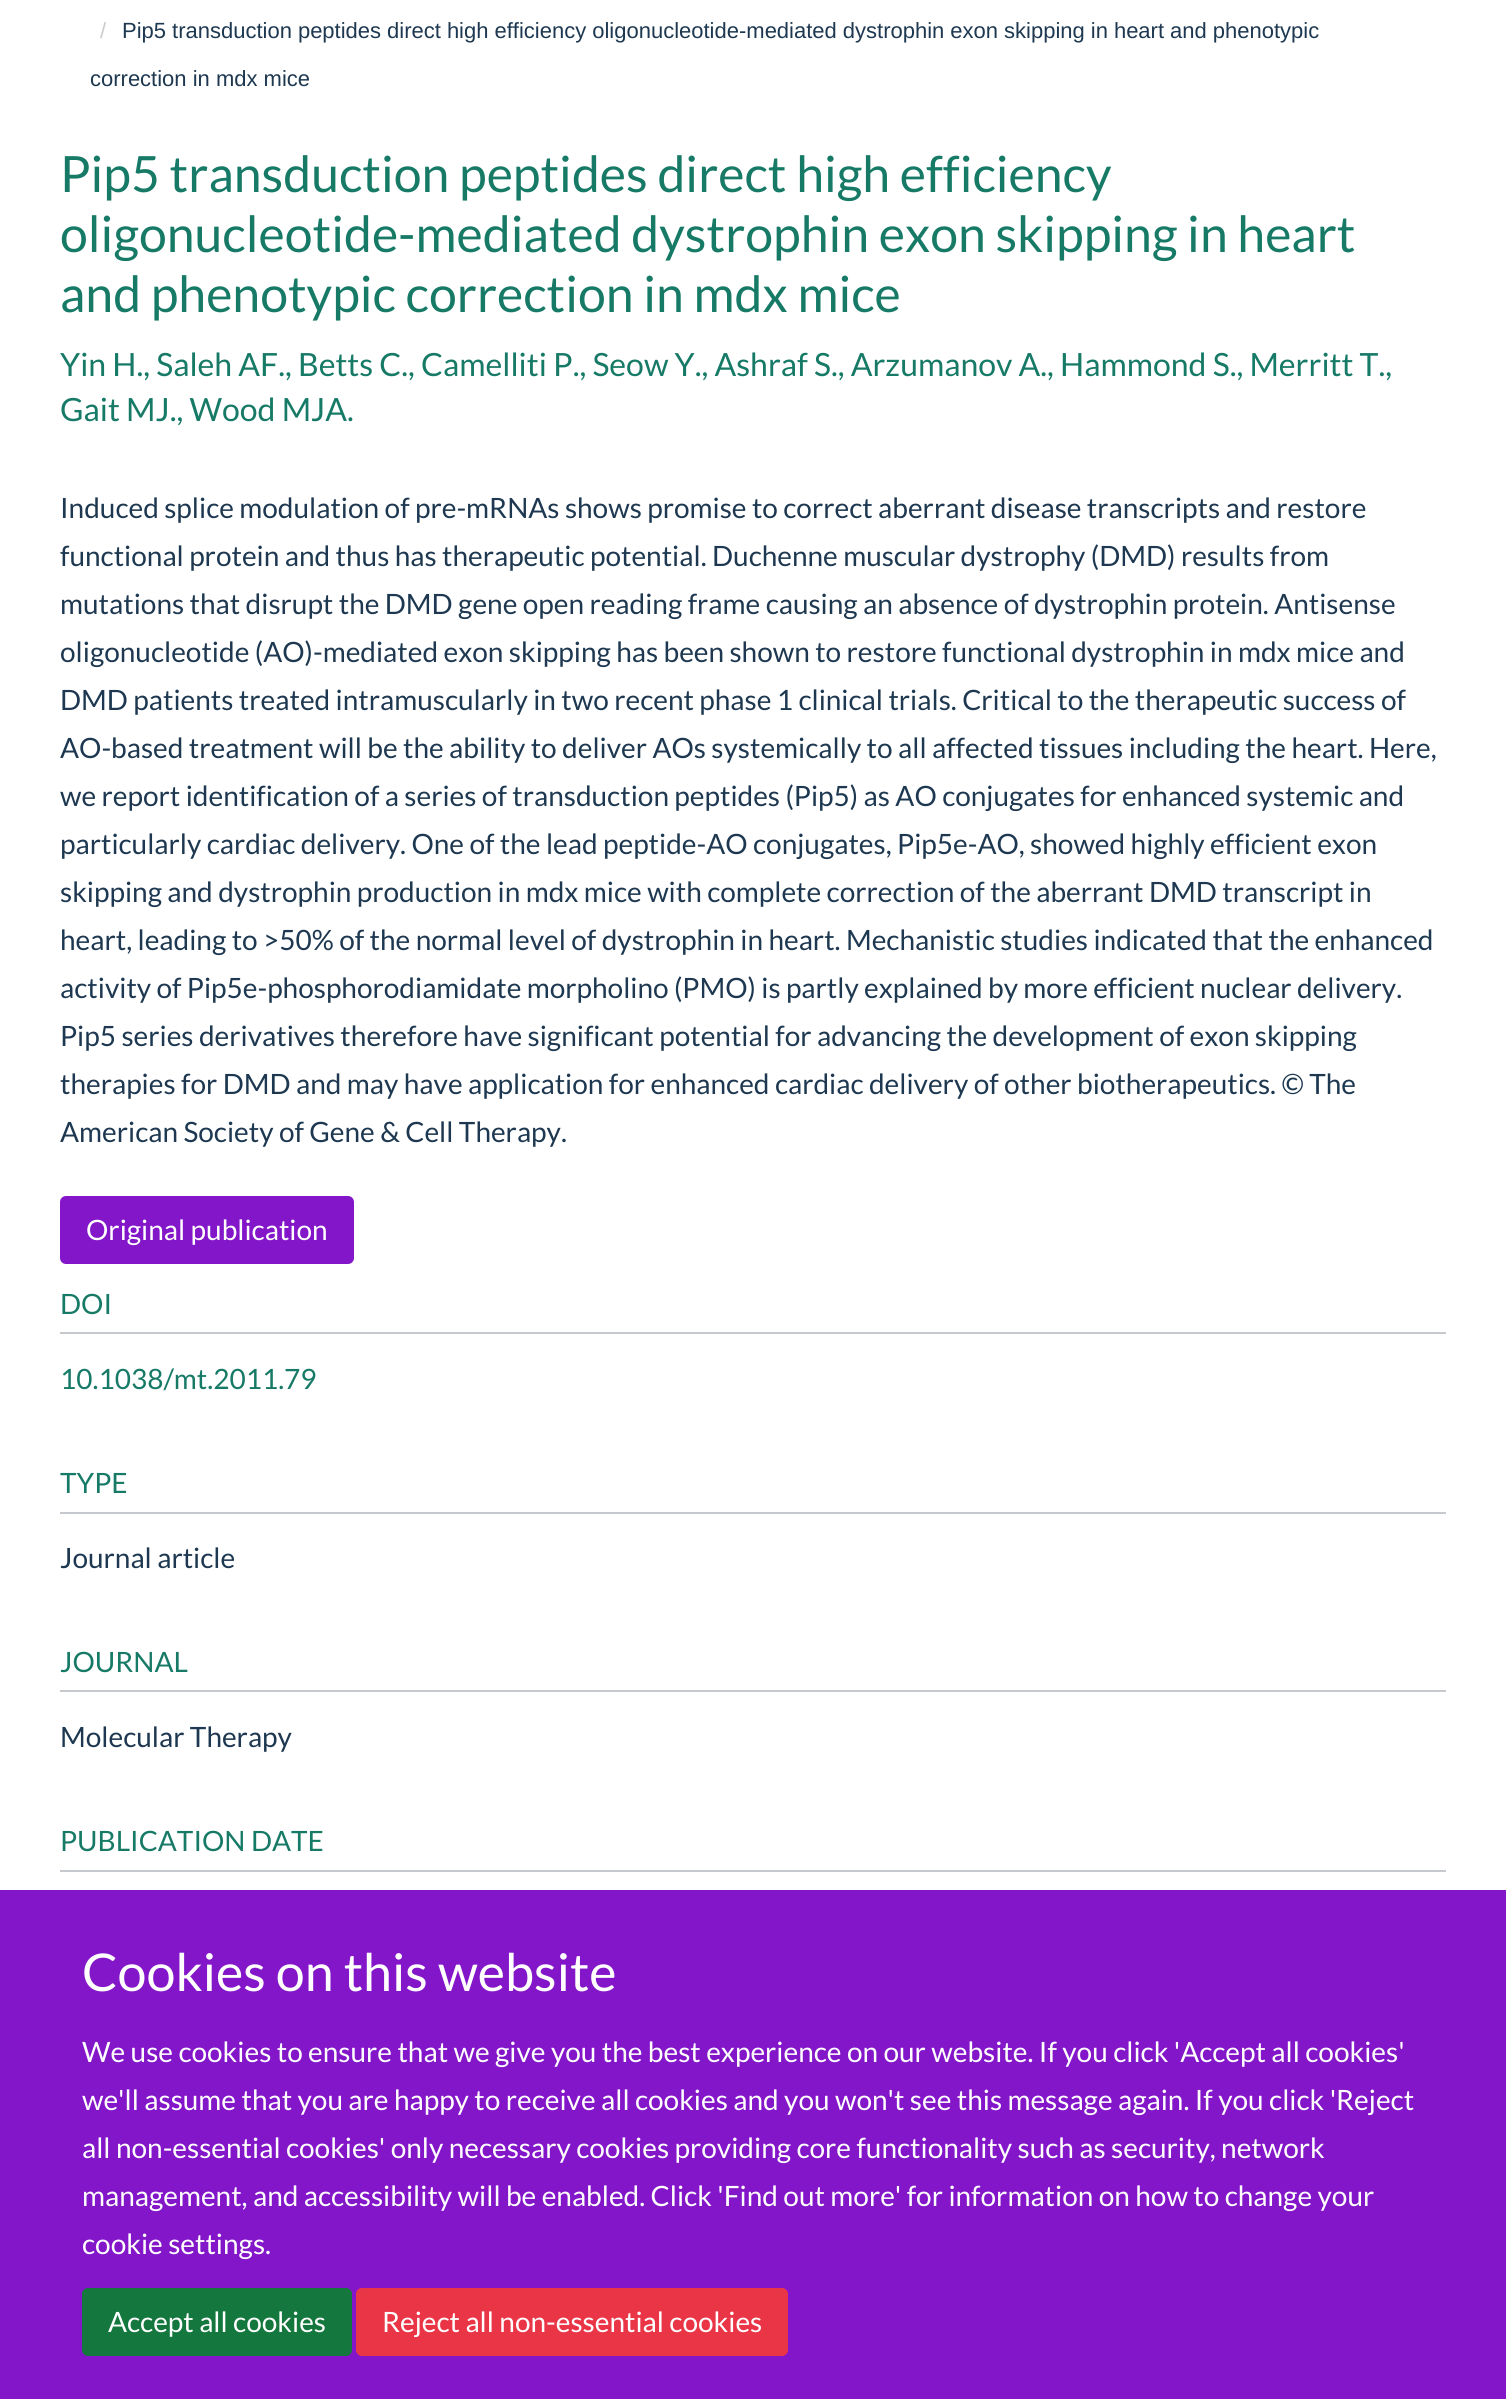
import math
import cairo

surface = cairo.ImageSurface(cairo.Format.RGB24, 1506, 2399)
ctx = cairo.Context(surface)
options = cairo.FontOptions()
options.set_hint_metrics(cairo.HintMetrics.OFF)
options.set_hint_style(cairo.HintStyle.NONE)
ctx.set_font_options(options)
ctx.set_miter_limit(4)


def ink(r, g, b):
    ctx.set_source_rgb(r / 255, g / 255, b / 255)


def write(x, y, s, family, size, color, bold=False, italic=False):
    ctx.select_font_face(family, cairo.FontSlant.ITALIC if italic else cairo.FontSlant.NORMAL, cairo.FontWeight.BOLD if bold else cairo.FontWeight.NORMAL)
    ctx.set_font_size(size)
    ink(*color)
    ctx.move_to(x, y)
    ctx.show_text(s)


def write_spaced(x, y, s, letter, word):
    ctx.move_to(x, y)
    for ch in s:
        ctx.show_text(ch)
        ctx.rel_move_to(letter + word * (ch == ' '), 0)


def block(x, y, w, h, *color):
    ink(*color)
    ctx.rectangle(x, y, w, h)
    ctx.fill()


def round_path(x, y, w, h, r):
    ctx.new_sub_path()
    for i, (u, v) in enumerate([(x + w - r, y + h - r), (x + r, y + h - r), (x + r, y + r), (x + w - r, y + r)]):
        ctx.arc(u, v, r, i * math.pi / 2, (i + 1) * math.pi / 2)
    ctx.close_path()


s1 = dict(family="Liberation Sans", size=22, color=(204, 204, 204))
s2 = dict(family="Liberation Sans", size=22, color=(29, 56, 80))
s3 = dict(family="Lato", size=50, color=(22, 122, 102))
s4 = dict(family="Lato", size=32, color=(22, 122, 102))
s5 = dict(family="Lato", size=28, color=(29, 56, 80))
s6 = dict(family="Lato", size=28, color=(255, 255, 255))
s7 = dict(family="Lato", size=28, color=(22, 122, 102))
s8 = dict(family="Lato", size=52, color=(255, 255, 255))

ink(255, 255, 255)
ctx.paint()
write(100, 38, "/", **s1)
ink(29, 56, 80)
write_spaced(122, 38, "Pip5 transduction peptides direct high efficiency oligonucleotide-mediated dystrophin exon skipping in heart and phenotypic", 0, -0.1)
write(90, 86, "correction in mdx mice", **s2)
write(60, 192, "Pip5 transduction peptides direct high efficiency", **s3)
write(60, 252, "oligonucleotide-mediated dystrophin exon skipping in heart", **s3)
write(60, 312, "and phenotypic correction in mdx mice", **s3)
write(60, 376, "Yin H., Saleh AF., Betts C., Camelliti P., Seow Y., Ashraf S., Arzumanov A., Hammond S., Merritt T.,", **s4)
write(60, 421, "Gait MJ., Wood MJA.", **s4)
write(60, 518, "Induced splice modulation of pre-mRNAs shows promise to correct aberrant disease transcripts and restore", **s5)
write(60, 566, "functional protein and thus has therapeutic potential. Duchenne muscular dystrophy (DMD) results from", **s5)
write(60, 614, "mutations that disrupt the DMD gene open reading frame causing an absence of dystrophin protein. Antisense", **s5)
write(60, 662, "oligonucleotide (AO)-mediated exon skipping has been shown to restore functional dystrophin in mdx mice and", **s5)
write(60, 710, "DMD patients treated intramuscularly in two recent phase 1 clinical trials. Critical to the therapeutic success of", **s5)
write(60, 758, "AO-based treatment will be the ability to deliver AOs systemically to all affected tissues including the heart. Here,", **s5)
write(60, 806, "we report identification of a series of transduction peptides (Pip5) as AO conjugates for enhanced systemic and", **s5)
write(60, 854, "particularly cardiac delivery. One of the lead peptide-AO conjugates, Pip5e-AO, showed highly efficient exon", **s5)
write(60, 902, "skipping and dystrophin production in mdx mice with complete correction of the aberrant DMD transcript in", **s5)
write(60, 950, "heart, leading to >50% of the normal level of dystrophin in heart. Mechanistic studies indicated that the enhanced", **s5)
write_spaced(60, 998, "activity of Pip5e-phosphorodiamidate morpholino (PMO) is partly explained by more efficient nuclear delivery.", 0, -0.1)
write(60, 1046, "Pip5 series derivatives therefore have significant potential for advancing the development of exon skipping", **s5)
write(60, 1094, "therapies for DMD and may have application for enhanced cardiac delivery of other biotherapeutics. © The", **s5)
write(60, 1142, "American Society of Gene & Cell Therapy.", **s5)
ink(132, 22, 201)
round_path(61, 1197, 292, 66, 5)
ctx.fill_preserve()
ctx.stroke()
write(86, 1240, "Original publication", **s6)
block(60, 1332, 1386, 2, 198, 202, 207)
write(60, 1314, "DOI", **s7)
write(60, 1389, "10.1038/mt.2011.79", **s7)
block(60, 1512, 1386, 2, 198, 202, 207)
write(60, 1493, "TYPE", **s7)
write(60, 1568, "Journal article", **s5)
block(60, 1690, 1386, 2, 198, 202, 207)
write(60, 1672, "JOURNAL", **s7)
write(60, 1747, "Molecular Therapy", **s5)
block(60, 1870, 1386, 2, 198, 202, 207)
write(60, 1851, "PUBLICATION DATE", **s7)
block(0, 1890, 1506, 509, 132, 22, 201)
write(82, 1991, "Cookies on this website", **s8)
write(82, 2062, "We use cookies to ensure that we give you the best experience on our website. If you click 'Accept all cookies'", **s6)
write(82, 2110, "we'll assume that you are happy to receive all cookies and you won't see this message again. If you click 'Reject", **s6)
write(82, 2158, "all non-essential cookies' only necessary cookies providing core functionality such as security, network", **s6)
write(82, 2206, "management, and accessibility will be enabled. Click 'Find out more' for information on how to change your", **s6)
write(82, 2254, "cookie settings.", **s6)
ink(20, 119, 61)
round_path(83, 2289, 268, 66, 5)
ctx.fill_preserve()
ctx.stroke()
write(108, 2332, "Accept all cookies", **s6)
ink(234, 53, 70)
round_path(357, 2289, 430, 66, 5)
ctx.fill_preserve()
ctx.stroke()
write(382, 2332, "Reject all non-essential cookies", **s6)
surface.write_to_png("screenshot.png")
